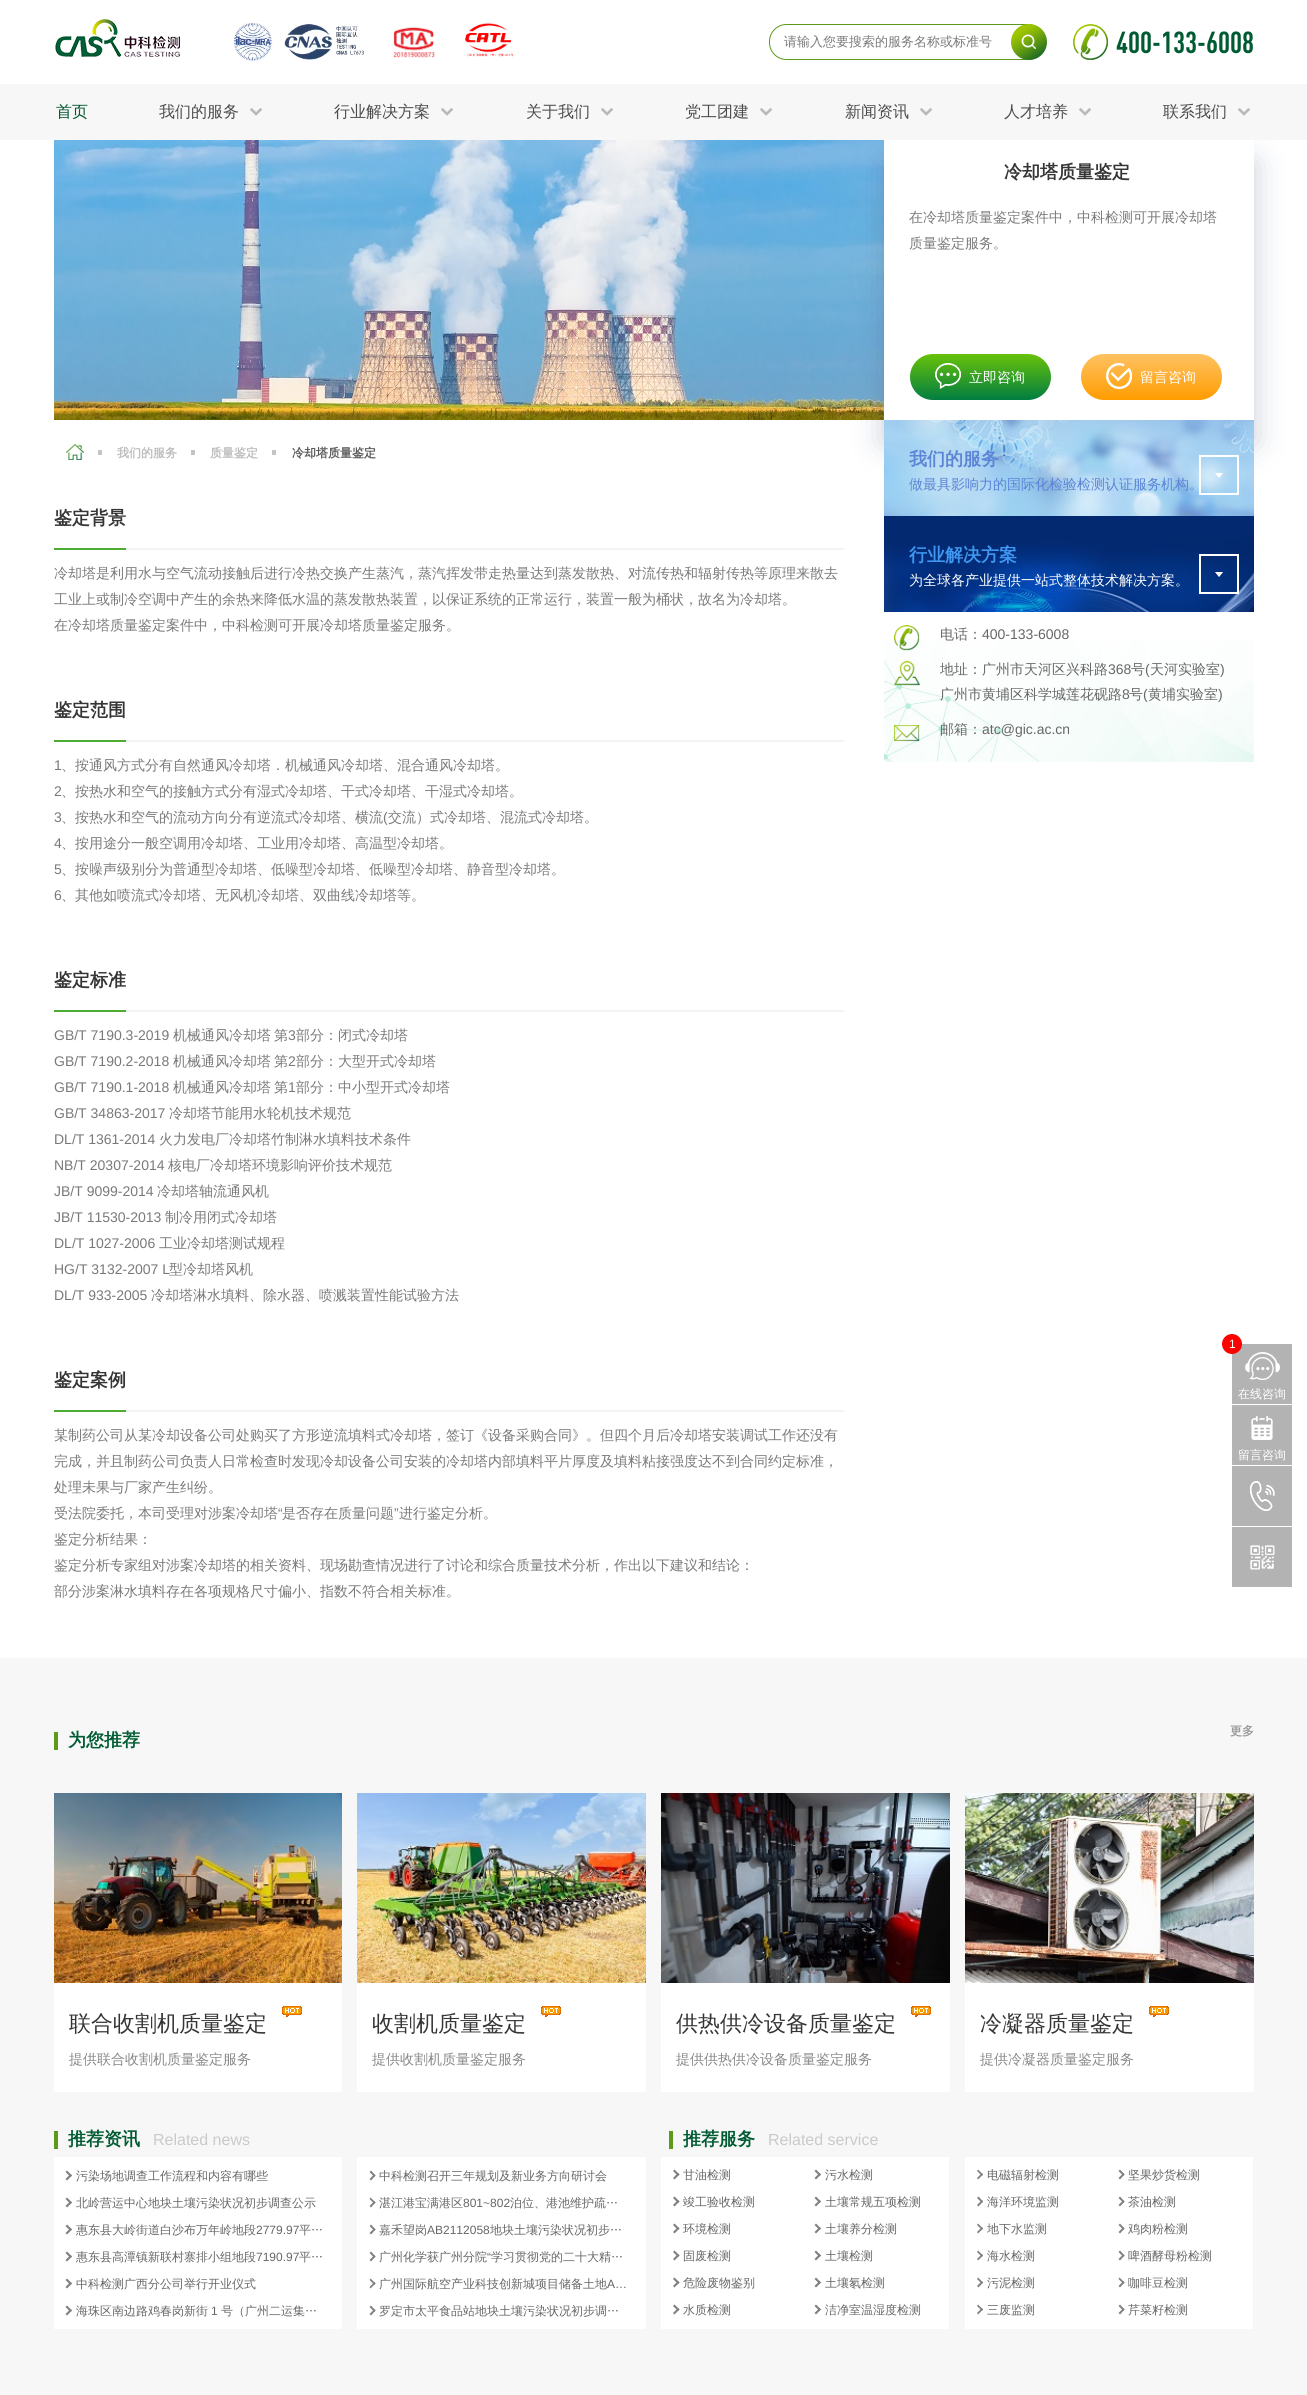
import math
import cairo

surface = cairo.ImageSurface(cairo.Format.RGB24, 1307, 2395)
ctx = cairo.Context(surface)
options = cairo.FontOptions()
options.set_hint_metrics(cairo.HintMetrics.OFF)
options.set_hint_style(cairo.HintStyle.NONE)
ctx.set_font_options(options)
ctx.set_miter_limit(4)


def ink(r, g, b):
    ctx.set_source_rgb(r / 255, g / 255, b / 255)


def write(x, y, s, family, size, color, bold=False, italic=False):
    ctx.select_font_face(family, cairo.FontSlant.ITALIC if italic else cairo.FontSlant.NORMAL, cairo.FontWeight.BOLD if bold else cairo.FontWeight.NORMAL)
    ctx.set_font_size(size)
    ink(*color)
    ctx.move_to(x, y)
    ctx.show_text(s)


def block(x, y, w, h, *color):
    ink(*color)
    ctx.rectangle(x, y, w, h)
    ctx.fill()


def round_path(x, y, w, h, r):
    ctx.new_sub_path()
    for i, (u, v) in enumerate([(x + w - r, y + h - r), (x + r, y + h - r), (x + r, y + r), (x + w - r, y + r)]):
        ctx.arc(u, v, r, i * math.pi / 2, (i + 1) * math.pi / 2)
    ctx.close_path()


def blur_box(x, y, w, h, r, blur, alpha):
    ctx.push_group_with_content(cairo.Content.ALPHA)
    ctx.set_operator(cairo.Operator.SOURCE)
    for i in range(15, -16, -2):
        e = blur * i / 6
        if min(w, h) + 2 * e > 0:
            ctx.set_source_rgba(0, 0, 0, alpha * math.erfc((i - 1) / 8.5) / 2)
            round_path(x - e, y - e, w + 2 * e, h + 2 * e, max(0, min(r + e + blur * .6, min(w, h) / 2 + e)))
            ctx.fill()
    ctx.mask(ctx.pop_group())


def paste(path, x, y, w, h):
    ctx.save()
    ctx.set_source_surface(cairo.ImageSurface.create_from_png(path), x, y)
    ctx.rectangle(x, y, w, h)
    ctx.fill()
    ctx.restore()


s1 = dict(family="WenQuanYi Zen Hei Medium", size=13, color=(121, 121, 121))
s2 = dict(family="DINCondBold", size=30, color=(0, 91, 51), bold=True)
s3 = dict(family="WenQuanYi Zen Hei Medium", size=16, color=(0, 86, 45))
s4 = dict(family="WenQuanYi Zen Hei Medium", size=16, color=(76, 76, 76))
s5 = dict(family="WenQuanYi Zen Hei", size=18, color=(53, 53, 53), bold=True)
s6 = dict(family="WenQuanYi Zen Hei Medium", size=14, color=(121, 121, 121))
s7 = dict(family="WenQuanYi Zen Hei Medium", size=14, color=(255, 255, 255))
s8 = dict(family="WenQuanYi Zen Hei", size=12, color=(188, 188, 188), bold=True)
s9 = dict(family="WenQuanYi Zen Hei", size=12, color=(90, 90, 90), bold=True)
s10 = dict(family="Liberation Sans", size=14, color=(121, 121, 121))
s11 = dict(family="WenQuanYi Zen Hei", size=18, color=(91, 131, 214), bold=True)
s12 = dict(family="WenQuanYi Zen Hei Medium", size=14, color=(91, 131, 214))
s13 = dict(family="WenQuanYi Zen Hei", size=18, color=(63, 151, 241), bold=True)
s14 = dict(family="WenQuanYi Zen Hei Medium", size=14, color=(102, 102, 102))
s15 = dict(family="Liberation Sans", size=14, color=(102, 102, 102))
s16 = dict(family="WenQuanYi Zen Hei", size=18, color=(0, 91, 51), bold=True)
s17 = dict(family="WenQuanYi Zen Hei", size=12, color=(153, 153, 153), bold=True)
s18 = dict(family="WenQuanYi Zen Hei Medium", size=22, color=(53, 53, 53))
s19 = dict(family="WenQuanYi Zen Hei Medium", size=14, color=(136, 136, 136))
s20 = dict(family="Liberation Sans", size=16, color=(202, 202, 204))
s21 = dict(family="WenQuanYi Zen Hei Medium", size=12, color=(102, 102, 102))
s22 = dict(family="Liberation Sans", size=12, color=(102, 102, 102))
s23 = dict(family="Liberation Sans", size=12, color=(255, 255, 255))
s24 = dict(family="WenQuanYi Zen Hei Medium", size=12, color=(255, 255, 255))

ink(255, 255, 255)
ctx.paint()
paste("pic1.png", 55, 18, 125, 39)
paste("pic2.png", 234, 23, 130, 38)
paste("pic3.png", 393, 27, 42, 31)
paste("pic4.png", 465, 23, 49, 34)
paste("pic5.png", 769, 24, 278, 36)
write(784, 46, "请输入您要搜索的服务名称或标准号", **s1)
paste("pic6.png", 1073, 24, 35, 36)
write(1116, 53, "400-133-6008", **s2)
paste("pic8.png", 54, 140, 830, 280)
ctx.save()
ctx.set_fill_rule(cairo.FillRule.EVEN_ODD)
ctx.new_path()
ctx.move_to(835, 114)
ctx.line_to(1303, 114)
ctx.line_to(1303, 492)
ctx.line_to(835, 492)
ctx.close_path()
ctx.move_to(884, 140)
ctx.line_to(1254, 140)
ctx.line_to(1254, 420)
ctx.line_to(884, 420)
ctx.close_path()
ctx.clip()
ink(59, 69, 116)
blur_box(884, 163, 370, 280, 0, 16, 0.27)
ctx.restore()
block(0, 84, 1307, 56, 247, 247, 247)
write(56, 117, "首页", **s3)
write(159, 117, "我们的服务", **s4)
paste("pic7.png", 250, 108, 13, 8)
write(334, 117, "行业解决方案", **s4)
paste("pic7.png", 441, 108, 13, 8)
write(526, 117, "关于我们", **s4)
paste("pic7.png", 601, 108, 13, 8)
write(685, 117, "党工团建", **s4)
paste("pic7.png", 760, 108, 13, 8)
write(845, 117, "新闻资讯", **s4)
paste("pic7.png", 920, 108, 13, 8)
write(1004, 117, "人才培养", **s4)
paste("pic7.png", 1079, 108, 13, 8)
write(1163, 117, "联系我们", **s4)
paste("pic7.png", 1238, 108, 13, 8)
write(1004, 178, "冷却塔质量鉴定", **s5)
write(909, 222, "在冷却塔质量鉴定案件中，中科检测可开展冷却塔", **s6)
write(909, 248, "质量鉴定服务。", **s6)
gradient = cairo.LinearGradient(981, 354, 981, 400)
gradient.add_color_stop_rgba(0, 0.408, 0.761, 0.035, 1)
gradient.add_color_stop_rgba(1, 0.004, 0.49, 0.259, 1)
ctx.set_source(gradient)
round_path(910, 354, 141, 46, 23)
ctx.fill()
paste("pic9.png", 935, 363, 26, 26)
write(969, 382, "立即咨询", **s7)
gradient = cairo.LinearGradient(1152, 354, 1152, 400)
gradient.add_color_stop_rgba(0, 1, 0.761, 0.388, 1)
gradient.add_color_stop_rgba(1, 1, 0.612, 0, 1)
ctx.set_source(gradient)
round_path(1081, 354, 141, 46, 23)
ctx.fill()
paste("pic10.png", 1106, 363, 26, 26)
write(1140, 382, "留言咨询", **s7)
paste("pic11.png", 66, 444, 18, 16)
block(98, 450, 4, 5, 196, 196, 196)
write(117, 457, "我们的服务", **s8)
block(191, 450, 4, 5, 196, 196, 196)
write(210, 457, "质量鉴定", **s8)
block(272, 450, 4, 5, 196, 196, 196)
write(292, 457, "冷却塔质量鉴定", **s9)
write(54, 524, "鉴定背景", **s5)
block(54, 548, 72, 2, 76, 173, 50)
block(126, 548, 718, 2, 243, 243, 243)
write(54, 578, "冷却塔是利用水与空气流动接触后进行冷热交换产生蒸汽，蒸汽挥发带走热量达到蒸发散热、对流传热和辐射传热等原理来散去", **s6)
write(54, 604, "工业上或制冷空调中产生的余热来降低水温的蒸发散热装置，以保证系统的正常运行，装置一般为桶状，故名为冷却塔。", **s6)
write(54, 630, "在冷却塔质量鉴定案件中，中科检测可开展冷却塔质量鉴定服务。", **s6)
write(54, 716, "鉴定范围", **s5)
block(54, 740, 72, 2, 76, 173, 50)
block(126, 740, 718, 2, 243, 243, 243)
write(54, 770, "1", **s10)
write(61, 770, "、按通风方式分有自然通风冷却塔．机械通风冷却塔、混合通风冷却塔。", **s6)
write(54, 796, "2", **s10)
write(61, 796, "、按热水和空气的接触方式分有湿式冷却塔、干式冷却塔、干湿式冷却塔。", **s6)
write(54, 822, "3", **s10)
write(61, 822, "、按热水和空气的流动方向分有逆流式冷却塔、横流", **s6)
write(383, 822, "(", **s10)
write(388, 822, "交流）式冷却塔、混流式冷却塔。", **s6)
write(54, 848, "4", **s10)
write(61, 848, "、按用途分一般空调用冷却塔、工业用冷却塔、高温型冷却塔。", **s6)
write(54, 874, "5", **s10)
write(61, 874, "、按噪声级别分为普通型冷却塔、低噪型冷却塔、低噪型冷却塔、静音型冷却塔。", **s6)
write(54, 900, "6", **s10)
write(61, 900, "、其他如喷流式冷却塔、无风机冷却塔、双曲线冷却塔等。", **s6)
write(54, 986, "鉴定标准", **s5)
block(54, 1010, 72, 2, 76, 173, 50)
block(126, 1010, 718, 2, 243, 243, 243)
write(54, 1040, "GB/T 7190.3-2019", **s10)
write(173, 1040, "机械通风冷却塔", **s6)
write(274, 1040, "第", **s6)
write(288, 1040, "3", **s10)
write(296, 1040, "部分：闭式冷却塔", **s6)
write(54, 1066, "GB/T 7190.2-2018", **s10)
write(173, 1066, "机械通风冷却塔", **s6)
write(274, 1066, "第", **s6)
write(288, 1066, "2", **s10)
write(296, 1066, "部分：大型开式冷却塔", **s6)
write(54, 1092, "GB/T 7190.1-2018", **s10)
write(173, 1092, "机械通风冷却塔", **s6)
write(274, 1092, "第", **s6)
write(288, 1092, "1", **s10)
write(296, 1092, "部分：中小型开式冷却塔", **s6)
write(54, 1118, "GB/T 34863-2017", **s10)
write(169, 1118, "冷却塔节能用水轮机技术规范", **s6)
write(54, 1144, "DL/T 1361-2014", **s10)
write(159, 1144, "火力发电厂冷却塔竹制淋水填料技术条件", **s6)
write(54, 1170, "NB/T 20307-2014", **s10)
write(168, 1170, "核电厂冷却塔环境影响评价技术规范", **s6)
write(54, 1196, "JB/T 9099-2014", **s10)
write(157, 1196, "冷却塔轴流通风机", **s6)
write(54, 1222, "JB/T 11530-2013", **s10)
write(165, 1222, "制冷用闭式冷却塔", **s6)
write(54, 1248, "DL/T 1027-2006", **s10)
write(159, 1248, "工业冷却塔测试规程", **s6)
write(54, 1274, "HG/T 3132-2007 L", **s10)
write(169, 1274, "型冷却塔风机", **s6)
write(54, 1300, "DL/T 933-2005", **s10)
write(151, 1300, "冷却塔淋水填料、除水器、喷溅装置性能试验方法", **s6)
write(54, 1386, "鉴定案例", **s5)
block(54, 1410, 72, 2, 76, 173, 50)
block(126, 1410, 718, 2, 243, 243, 243)
write(54, 1440, "某制药公司从某冷却设备公司处购买了方形逆流填料式冷却塔，签订《设备采购合同》。但四个月后冷却塔安装调试工作还没有", **s6)
write(54, 1466, "完成，并且制药公司负责人日常检查时发现冷却设备公司安装的冷却塔内部填料平片厚度及填料粘接强度达不到合同约定标准，", **s6)
write(54, 1492, "处理未果与厂家产生纠纷。", **s6)
write(54, 1518, "受法院委托，本司受理对涉案冷却塔", **s6)
write(278, 1518, "“", **s10)
write(282, 1518, "是否存在质量问题", **s6)
write(394, 1518, "”", **s10)
write(399, 1518, "进行鉴定分析。", **s6)
write(54, 1544, "鉴定分析结果：", **s6)
write(54, 1570, "鉴定分析专家组对涉案冷却塔的相关资料、现场勘查情况进行了讨论和综合质量技术分析，作出以下建议和结论：", **s6)
write(54, 1596, "部分涉案淋水填料存在各项规格尺寸偏小、指数不符合相关标准。", **s6)
paste("pic12.png", 884, 420, 370, 96)
write(909, 465, "我们的服务", **s11)
paste("pic13.png", 1215, 473, 8, 5)
ctx.rectangle(1200, 456, 38, 38)
ink(255, 255, 255)
ctx.stroke()
write(909, 489, "做最具影响力的国际化检验检测认证服务机构。", **s12)
paste("pic14.png", 884, 516, 370, 96)
write(909, 561, "行业解决方案", **s13)
paste("pic15.png", 1215, 572, 8, 5)
ctx.rectangle(1200, 555, 38, 38)
ink(255, 255, 255)
ctx.stroke()
write(909, 585, "为全球各产业提供一站式整体技术解决方案。", **s7)
paste("pic16.png", 883, 640, 371, 122)
paste("pic17.png", 894, 625, 26, 26)
write(940, 639, "电话：", **s14)
write(982, 639, "400-133-6008", **s15)
paste("pic18.png", 894, 660, 26, 26)
write(940, 674, "地址：广州市天河区兴科路", **s14)
write(1108, 674, "368", **s15)
write(1131, 674, "号", **s14)
write(1145, 674, "(", **s15)
write(1150, 674, "天河实验室", **s14)
write(1220, 674, ")", **s15)
write(940, 699, "广州市黄埔区科学城莲花砚路", **s14)
write(1122, 699, "8", **s15)
write(1129, 699, "号", **s14)
write(1143, 699, "(", **s15)
write(1148, 699, "黄埔实验室", **s14)
write(1218, 699, ")", **s15)
paste("pic19.png", 894, 725, 26, 17)
write(940, 734, "邮箱：", **s14)
write(982, 734, "atc@gic.ac.cn", **s15)
block(0, 1658, 1307, 737, 247, 247, 247)
block(54, 1732, 4, 18, 93, 154, 27)
write(68, 1746, "为您推荐", **s16)
write(1230, 1735, "更多", **s17)
paste("pic20.png", 54, 1793, 288, 190)
block(54, 1983, 288, 109, 255, 255, 255)
ctx.save()
ctx.rectangle(69, 2007, 213, 34)
ctx.clip()
write(69, 2031, "联合收割机质量鉴定", **s18)
ctx.restore()
paste("pic21.png", 282, 2006, 20, 11)
write(69, 2064, "提供联合收割机质量鉴定服务", **s19)
paste("pic22.png", 357, 1793, 289, 190)
block(357, 1983, 289, 109, 255, 255, 255)
write(372, 2031, "收割机质量鉴定", **s18)
paste("pic21.png", 541, 2006, 20, 11)
write(372, 2064, "提供收割机质量鉴定服务", **s19)
paste("pic23.png", 661, 1793, 289, 190)
block(661, 1983, 289, 109, 255, 255, 255)
write(676, 2031, "供热供冷设备质量鉴定", **s18)
paste("pic21.png", 911, 2006, 20, 11)
write(676, 2064, "提供供热供冷设备质量鉴定服务", **s19)
paste("pic24.png", 965, 1793, 289, 190)
block(965, 1983, 289, 109, 255, 255, 255)
write(980, 2031, "冷凝器质量鉴定", **s18)
paste("pic21.png", 1149, 2006, 20, 11)
write(980, 2064, "提供冷凝器质量鉴定服务", **s19)
block(54, 2131, 4, 18, 93, 154, 27)
write(68, 2145, "推荐资讯", **s16)
write(153, 2145, "Related news", **s20)
block(669, 2131, 4, 18, 93, 154, 27)
write(683, 2145, "推荐服务", **s16)
write(768, 2145, "Related service", **s20)
block(54, 2157, 288, 172, 255, 255, 255)
ink(128, 128, 128)
ctx.new_path()
ctx.move_to(67, 2170.5)
ctx.line_to(72, 2175.5)
ctx.line_to(70.5, 2177)
ctx.line_to(65.5, 2172)
ctx.close_path()
ctx.fill()
ctx.new_path()
ctx.move_to(70.5, 2174)
ctx.line_to(72, 2175.5)
ctx.line_to(67, 2180.5)
ctx.line_to(65.5, 2179)
ctx.close_path()
ctx.move_to(67, 2197.5)
ctx.line_to(72, 2202.5)
ctx.line_to(70.5, 2204)
ctx.line_to(65.5, 2199)
ctx.close_path()
ctx.fill()
write(76, 2180, "污染场地调查工作流程和内容有哪些", **s21)
ink(128, 128, 128)
ctx.new_path()
ctx.move_to(70.5, 2201)
ctx.line_to(72, 2202.5)
ctx.line_to(67, 2207.5)
ctx.line_to(65.5, 2206)
ctx.close_path()
ctx.move_to(67, 2224.5)
ctx.line_to(72, 2229.5)
ctx.line_to(70.5, 2231)
ctx.line_to(65.5, 2226)
ctx.close_path()
ctx.fill()
write(76, 2207, "北岭营运中心地块土壤污染状况初步调查公示", **s21)
ink(128, 128, 128)
ctx.new_path()
ctx.move_to(70.5, 2228)
ctx.line_to(72, 2229.5)
ctx.line_to(67, 2234.5)
ctx.line_to(65.5, 2233)
ctx.close_path()
ctx.move_to(67, 2251.5)
ctx.line_to(72, 2256.5)
ctx.line_to(70.5, 2258)
ctx.line_to(65.5, 2253)
ctx.close_path()
ctx.fill()
ctx.save()
ctx.rectangle(76, 2222, 248, 17)
ctx.clip()
write(76, 2234, "惠东县大岭街道白沙布万年岭地段", **s21)
ctx.restore()
write(256, 2234, "2779.97", **s22)
write(299, 2234, "平…", **s21)
ink(128, 128, 128)
ctx.new_path()
ctx.move_to(70.5, 2255)
ctx.line_to(72, 2256.5)
ctx.line_to(67, 2261.5)
ctx.line_to(65.5, 2260)
ctx.close_path()
ctx.move_to(67, 2278.5)
ctx.line_to(72, 2283.5)
ctx.line_to(70.5, 2285)
ctx.line_to(65.5, 2280)
ctx.close_path()
ctx.fill()
ctx.save()
ctx.rectangle(76, 2249, 248, 17)
ctx.clip()
write(76, 2261, "惠东县高潭镇新联村寨排小组地段", **s21)
ctx.restore()
write(256, 2261, "7190.97", **s22)
write(299, 2261, "平…", **s21)
ink(128, 128, 128)
ctx.new_path()
ctx.move_to(70.5, 2282)
ctx.line_to(72, 2283.5)
ctx.line_to(67, 2288.5)
ctx.line_to(65.5, 2287)
ctx.close_path()
ctx.move_to(67, 2305.5)
ctx.line_to(72, 2310.5)
ctx.line_to(70.5, 2312)
ctx.line_to(65.5, 2307)
ctx.close_path()
ctx.fill()
write(76, 2288, "中科检测广西分公司举行开业仪式", **s21)
ink(128, 128, 128)
ctx.new_path()
ctx.move_to(70.5, 2309)
ctx.line_to(72, 2310.5)
ctx.line_to(67, 2315.5)
ctx.line_to(65.5, 2314)
ctx.close_path()
ctx.fill()
write(76, 2315, "海珠区南边路鸡春岗新街", **s21)
write(211, 2315, "1", **s22)
write(221, 2315, "号（广州二运集…", **s21)
block(357, 2157, 289, 172, 255, 255, 255)
ink(128, 128, 128)
ctx.new_path()
ctx.move_to(371, 2170.5)
ctx.line_to(375.5, 2175.5)
ctx.line_to(374.5, 2177)
ctx.line_to(369.5, 2172)
ctx.close_path()
ctx.fill()
ctx.new_path()
ctx.move_to(374.5, 2174)
ctx.line_to(375.5, 2175.5)
ctx.line_to(371, 2180.5)
ctx.line_to(369.5, 2179)
ctx.close_path()
ctx.move_to(370.5, 2197.5)
ctx.line_to(375.5, 2202.5)
ctx.line_to(374.5, 2204)
ctx.line_to(369.5, 2199)
ctx.close_path()
ctx.fill()
write(379, 2180, "中科检测召开三年规划及新业务方向研讨会", **s21)
ink(128, 128, 128)
ctx.new_path()
ctx.move_to(374.5, 2201)
ctx.line_to(375.5, 2202.5)
ctx.line_to(371, 2207.5)
ctx.line_to(369.5, 2206)
ctx.close_path()
ctx.move_to(371, 2224.5)
ctx.line_to(375.5, 2229.5)
ctx.line_to(374.5, 2231)
ctx.line_to(369.5, 2226)
ctx.close_path()
ctx.fill()
write(379, 2207, "湛江港宝满港区", **s21)
write(463, 2207, "801~802", **s22)
write(510, 2207, "泊位、港池维护疏…", **s21)
ink(128, 128, 128)
ctx.new_path()
ctx.move_to(374.5, 2228)
ctx.line_to(375.5, 2229.5)
ctx.line_to(371, 2234.5)
ctx.line_to(369.5, 2233)
ctx.close_path()
ctx.move_to(371, 2251.5)
ctx.line_to(375.5, 2256.5)
ctx.line_to(374.5, 2258)
ctx.line_to(369.5, 2253)
ctx.close_path()
ctx.fill()
write(379, 2234, "嘉禾望岗", **s21)
write(427, 2234, "AB2112058", **s22)
write(490, 2234, "地块土壤污染状况初步…", **s21)
ink(128, 128, 128)
ctx.new_path()
ctx.move_to(374.5, 2255)
ctx.line_to(375.5, 2256.5)
ctx.line_to(371, 2261.5)
ctx.line_to(369.5, 2260)
ctx.close_path()
ctx.move_to(370.5, 2278.5)
ctx.line_to(375.5, 2283.5)
ctx.line_to(374.5, 2285)
ctx.line_to(369.5, 2280)
ctx.close_path()
ctx.fill()
write(379, 2261, "广州化学获广州分院", **s21)
write(487, 2261, "“", **s22)
write(491, 2261, "学习贯彻党的二十大精…", **s21)
ink(128, 128, 128)
ctx.new_path()
ctx.move_to(374.5, 2282)
ctx.line_to(375.5, 2283.5)
ctx.line_to(370.5, 2288.5)
ctx.line_to(369.5, 2287)
ctx.close_path()
ctx.move_to(371, 2305.5)
ctx.line_to(375.5, 2310.5)
ctx.line_to(374.5, 2312)
ctx.line_to(369.5, 2307)
ctx.close_path()
ctx.fill()
write(379, 2288, "广州国际航空产业科技创新城项目储备土地", **s21)
write(607, 2288, "A…", **s22)
ink(128, 128, 128)
ctx.new_path()
ctx.move_to(374.5, 2309)
ctx.line_to(375.5, 2310.5)
ctx.line_to(371, 2315.5)
ctx.line_to(369.5, 2314)
ctx.close_path()
ctx.fill()
write(379, 2315, "罗定市太平食品站地块土壤污染状况初步调…", **s21)
block(661, 2157, 288, 172, 255, 255, 255)
ink(128, 128, 128)
ctx.new_path()
ctx.move_to(674.5, 2169.5)
ctx.line_to(679.5, 2174.5)
ctx.line_to(678, 2176)
ctx.line_to(673, 2171)
ctx.close_path()
ctx.fill()
ctx.new_path()
ctx.move_to(678, 2173)
ctx.line_to(679.5, 2174.5)
ctx.line_to(674.5, 2179.5)
ctx.line_to(673, 2178)
ctx.close_path()
ctx.move_to(674.5, 2196.5)
ctx.line_to(679.5, 2201.5)
ctx.line_to(678, 2203)
ctx.line_to(673, 2198)
ctx.close_path()
ctx.fill()
write(683, 2179, "甘油检测", **s21)
ink(128, 128, 128)
ctx.new_path()
ctx.move_to(678, 2200)
ctx.line_to(679.5, 2201.5)
ctx.line_to(674.5, 2206.5)
ctx.line_to(673, 2205)
ctx.close_path()
ctx.move_to(674.5, 2223.5)
ctx.line_to(679.5, 2228.5)
ctx.line_to(678, 2230)
ctx.line_to(673, 2225)
ctx.close_path()
ctx.fill()
write(683, 2206, "竣工验收检测", **s21)
ink(128, 128, 128)
ctx.new_path()
ctx.move_to(678, 2227)
ctx.line_to(679.5, 2228.5)
ctx.line_to(674.5, 2233.5)
ctx.line_to(673, 2232)
ctx.close_path()
ctx.move_to(674.5, 2250.5)
ctx.line_to(679.5, 2255.5)
ctx.line_to(678, 2257)
ctx.line_to(673, 2252)
ctx.close_path()
ctx.fill()
write(683, 2233, "环境检测", **s21)
ink(128, 128, 128)
ctx.new_path()
ctx.move_to(678, 2254)
ctx.line_to(679.5, 2255.5)
ctx.line_to(674.5, 2260.5)
ctx.line_to(673, 2259)
ctx.close_path()
ctx.move_to(674.5, 2277.5)
ctx.line_to(679.5, 2282.5)
ctx.line_to(678, 2284)
ctx.line_to(673, 2279)
ctx.close_path()
ctx.fill()
write(683, 2260, "固废检测", **s21)
ink(128, 128, 128)
ctx.new_path()
ctx.move_to(678, 2281)
ctx.line_to(679.5, 2282.5)
ctx.line_to(674.5, 2287.5)
ctx.line_to(673, 2286)
ctx.close_path()
ctx.move_to(674.5, 2304.5)
ctx.line_to(679.5, 2309.5)
ctx.line_to(678, 2311)
ctx.line_to(673, 2306)
ctx.close_path()
ctx.fill()
write(683, 2287, "危险废物鉴别", **s21)
ink(128, 128, 128)
ctx.new_path()
ctx.move_to(678, 2308)
ctx.line_to(679.5, 2309.5)
ctx.line_to(674.5, 2314.5)
ctx.line_to(673, 2313)
ctx.close_path()
ctx.fill()
write(683, 2314, "水质检测", **s21)
ink(128, 128, 128)
ctx.new_path()
ctx.move_to(816, 2169.5)
ctx.line_to(821, 2174.5)
ctx.line_to(819.5, 2176)
ctx.line_to(814.5, 2171)
ctx.close_path()
ctx.fill()
ctx.new_path()
ctx.move_to(819.5, 2173)
ctx.line_to(821, 2174.5)
ctx.line_to(816, 2179.5)
ctx.line_to(814.5, 2178)
ctx.close_path()
ctx.move_to(816, 2196.5)
ctx.line_to(821, 2201.5)
ctx.line_to(819.5, 2203)
ctx.line_to(814.5, 2198)
ctx.close_path()
ctx.fill()
write(825, 2179, "污水检测", **s21)
ink(128, 128, 128)
ctx.new_path()
ctx.move_to(819.5, 2200)
ctx.line_to(821, 2201.5)
ctx.line_to(816, 2206.5)
ctx.line_to(814.5, 2205)
ctx.close_path()
ctx.move_to(816, 2223.5)
ctx.line_to(821, 2228.5)
ctx.line_to(819.5, 2230)
ctx.line_to(814.5, 2225)
ctx.close_path()
ctx.fill()
write(825, 2206, "土壤常规五项检测", **s21)
ink(128, 128, 128)
ctx.new_path()
ctx.move_to(819.5, 2227)
ctx.line_to(821, 2228.5)
ctx.line_to(816, 2233.5)
ctx.line_to(814.5, 2232)
ctx.close_path()
ctx.move_to(816, 2250.5)
ctx.line_to(821, 2255.5)
ctx.line_to(819.5, 2257)
ctx.line_to(814.5, 2252)
ctx.close_path()
ctx.fill()
write(825, 2233, "土壤养分检测", **s21)
ink(128, 128, 128)
ctx.new_path()
ctx.move_to(819.5, 2254)
ctx.line_to(821, 2255.5)
ctx.line_to(816, 2260.5)
ctx.line_to(814.5, 2259)
ctx.close_path()
ctx.move_to(816, 2277.5)
ctx.line_to(821, 2282.5)
ctx.line_to(819.5, 2284)
ctx.line_to(814.5, 2279)
ctx.close_path()
ctx.fill()
write(825, 2260, "土壤检测", **s21)
ink(128, 128, 128)
ctx.new_path()
ctx.move_to(819.5, 2281)
ctx.line_to(821, 2282.5)
ctx.line_to(816, 2287.5)
ctx.line_to(814.5, 2286)
ctx.close_path()
ctx.move_to(816, 2304.5)
ctx.line_to(821, 2309.5)
ctx.line_to(819.5, 2311)
ctx.line_to(814.5, 2306)
ctx.close_path()
ctx.fill()
write(825, 2287, "土壤氡检测", **s21)
ink(128, 128, 128)
ctx.new_path()
ctx.move_to(819.5, 2308)
ctx.line_to(821, 2309.5)
ctx.line_to(816, 2314.5)
ctx.line_to(814.5, 2313)
ctx.close_path()
ctx.fill()
write(825, 2314, "洁净室温湿度检测", **s21)
block(965, 2157, 288, 172, 255, 255, 255)
ink(128, 128, 128)
ctx.new_path()
ctx.move_to(978, 2169.5)
ctx.line_to(983, 2174.5)
ctx.line_to(982, 2176)
ctx.line_to(977, 2171)
ctx.close_path()
ctx.fill()
ctx.new_path()
ctx.move_to(982, 2173)
ctx.line_to(983, 2174.5)
ctx.line_to(978, 2179.5)
ctx.line_to(977, 2178)
ctx.close_path()
ctx.move_to(978.5, 2196.5)
ctx.line_to(983, 2201.5)
ctx.line_to(982, 2203)
ctx.line_to(977, 2198)
ctx.close_path()
ctx.fill()
write(987, 2179, "电磁辐射检测", **s21)
ink(128, 128, 128)
ctx.new_path()
ctx.move_to(982, 2200)
ctx.line_to(983, 2201.5)
ctx.line_to(978.5, 2206.5)
ctx.line_to(977, 2205)
ctx.close_path()
ctx.move_to(978, 2223.5)
ctx.line_to(983, 2228.5)
ctx.line_to(982, 2230)
ctx.line_to(977, 2225)
ctx.close_path()
ctx.fill()
write(987, 2206, "海洋环境监测", **s21)
ink(128, 128, 128)
ctx.new_path()
ctx.move_to(982, 2227)
ctx.line_to(983, 2228.5)
ctx.line_to(978, 2233.5)
ctx.line_to(977, 2232)
ctx.close_path()
ctx.move_to(978, 2250.5)
ctx.line_to(983, 2255.5)
ctx.line_to(982, 2257)
ctx.line_to(977, 2252)
ctx.close_path()
ctx.fill()
write(987, 2233, "地下水监测", **s21)
ink(128, 128, 128)
ctx.new_path()
ctx.move_to(982, 2254)
ctx.line_to(983, 2255.5)
ctx.line_to(978, 2260.5)
ctx.line_to(977, 2259)
ctx.close_path()
ctx.move_to(978, 2277.5)
ctx.line_to(983, 2282.5)
ctx.line_to(982, 2284)
ctx.line_to(977, 2279)
ctx.close_path()
ctx.fill()
write(987, 2260, "海水检测", **s21)
ink(128, 128, 128)
ctx.new_path()
ctx.move_to(982, 2281)
ctx.line_to(983, 2282.5)
ctx.line_to(978.5, 2287.5)
ctx.line_to(977, 2286)
ctx.close_path()
ctx.move_to(978, 2304.5)
ctx.line_to(983, 2309.5)
ctx.line_to(982, 2311)
ctx.line_to(977, 2306)
ctx.close_path()
ctx.fill()
write(987, 2287, "污泥检测", **s21)
ink(128, 128, 128)
ctx.new_path()
ctx.move_to(982, 2308)
ctx.line_to(983, 2309.5)
ctx.line_to(978, 2314.5)
ctx.line_to(977, 2313)
ctx.close_path()
ctx.fill()
write(987, 2314, "三废监测", **s21)
ink(128, 128, 128)
ctx.new_path()
ctx.move_to(1120, 2169.5)
ctx.line_to(1124.5, 2174.5)
ctx.line_to(1123.5, 2176)
ctx.line_to(1118.5, 2171)
ctx.close_path()
ctx.fill()
ctx.new_path()
ctx.move_to(1123.5, 2173)
ctx.line_to(1124.5, 2174.5)
ctx.line_to(1120, 2179.5)
ctx.line_to(1118.5, 2178)
ctx.close_path()
ctx.move_to(1120, 2196.5)
ctx.line_to(1124.5, 2201.5)
ctx.line_to(1123.5, 2203)
ctx.line_to(1118.5, 2198)
ctx.close_path()
ctx.fill()
write(1128, 2179, "坚果炒货检测", **s21)
ink(128, 128, 128)
ctx.new_path()
ctx.move_to(1123.5, 2200)
ctx.line_to(1124.5, 2201.5)
ctx.line_to(1120, 2206.5)
ctx.line_to(1118.5, 2205)
ctx.close_path()
ctx.move_to(1120, 2223.5)
ctx.line_to(1124.5, 2228.5)
ctx.line_to(1123.5, 2230)
ctx.line_to(1118.5, 2225)
ctx.close_path()
ctx.fill()
write(1128, 2206, "茶油检测", **s21)
ink(128, 128, 128)
ctx.new_path()
ctx.move_to(1123.5, 2227)
ctx.line_to(1124.5, 2228.5)
ctx.line_to(1120, 2233.5)
ctx.line_to(1118.5, 2232)
ctx.close_path()
ctx.move_to(1120, 2250.5)
ctx.line_to(1124.5, 2255.5)
ctx.line_to(1123.5, 2257)
ctx.line_to(1118.5, 2252)
ctx.close_path()
ctx.fill()
write(1128, 2233, "鸡肉粉检测", **s21)
ink(128, 128, 128)
ctx.new_path()
ctx.move_to(1123.5, 2254)
ctx.line_to(1124.5, 2255.5)
ctx.line_to(1120, 2260.5)
ctx.line_to(1118.5, 2259)
ctx.close_path()
ctx.move_to(1119.5, 2277.5)
ctx.line_to(1124.5, 2282.5)
ctx.line_to(1123.5, 2284)
ctx.line_to(1118.5, 2279)
ctx.close_path()
ctx.fill()
write(1128, 2260, "啤酒酵母粉检测", **s21)
ink(128, 128, 128)
ctx.new_path()
ctx.move_to(1123.5, 2281)
ctx.line_to(1124.5, 2282.5)
ctx.line_to(1120, 2287.5)
ctx.line_to(1118.5, 2286)
ctx.close_path()
ctx.move_to(1120, 2304.5)
ctx.line_to(1124.5, 2309.5)
ctx.line_to(1123.5, 2311)
ctx.line_to(1118.5, 2306)
ctx.close_path()
ctx.fill()
write(1128, 2287, "咖啡豆检测", **s21)
ink(128, 128, 128)
ctx.new_path()
ctx.move_to(1123.5, 2308)
ctx.line_to(1124.5, 2309.5)
ctx.line_to(1120, 2314.5)
ctx.line_to(1118.5, 2313)
ctx.close_path()
ctx.fill()
write(1128, 2314, "芹菜籽检测", **s21)
block(1232, 1344, 60, 60, 179, 179, 179)
ink(255, 0, 0)
ctx.new_path()
ctx.arc(1232, 1344, 10, 0, 2 * math.pi)
ctx.fill()
write(1229, 1348, "1", **s23)
paste("pic25.png", 1245, 1352, 35, 28)
write(1238, 1398, "在线咨询", **s24)
block(1232, 1405, 60, 60, 179, 179, 179)
paste("pic26.png", 1251, 1416, 22, 24)
write(1238, 1459, "留言咨询", **s24)
block(1232, 1466, 60, 60, 179, 179, 179)
paste("pic27.png", 1250, 1481, 25, 30)
block(1232, 1527, 60, 60, 179, 179, 179)
paste("pic28.png", 1250, 1545, 25, 25)
surface.write_to_png("screenshot.png")
